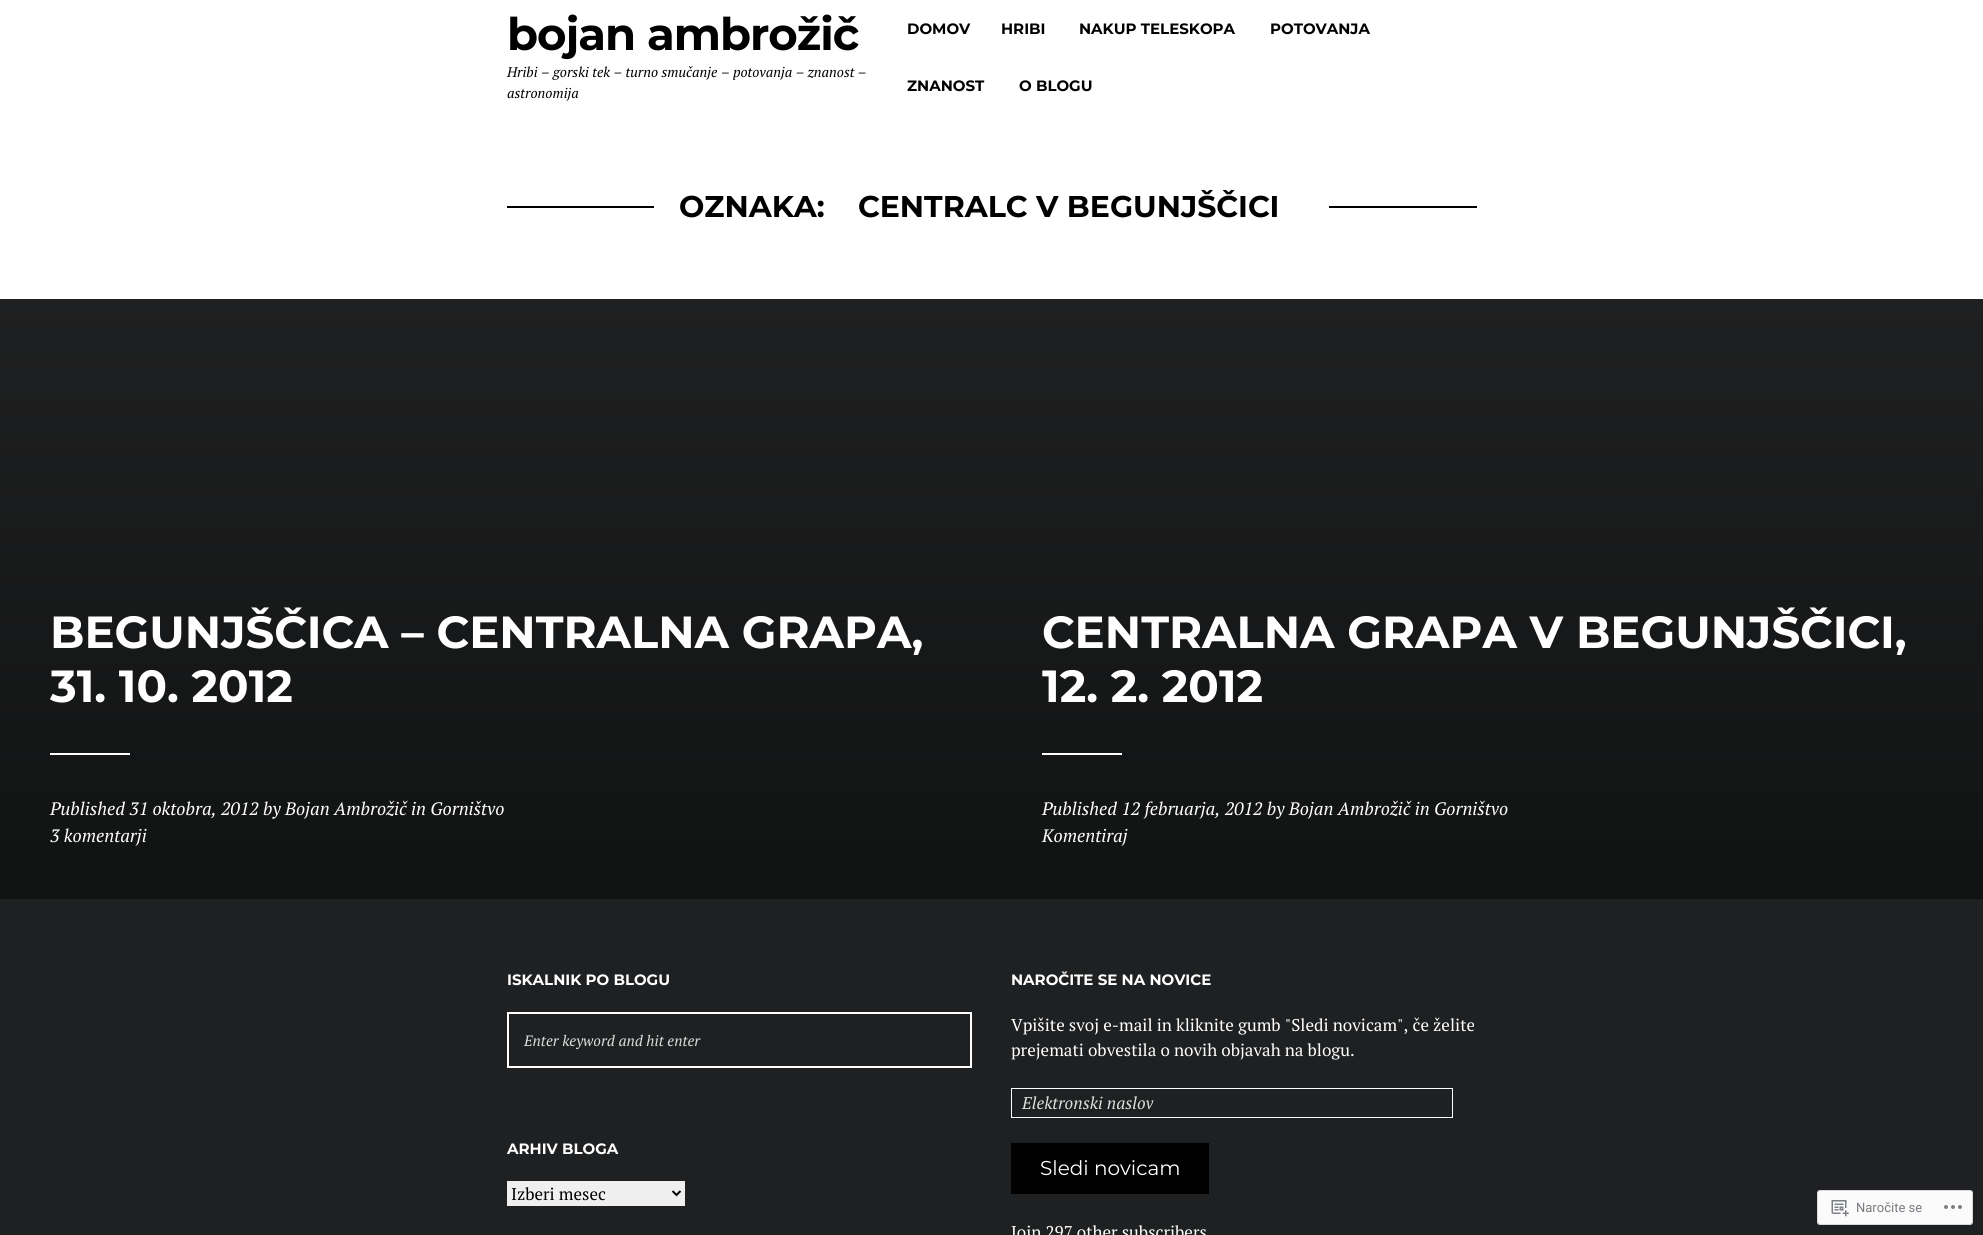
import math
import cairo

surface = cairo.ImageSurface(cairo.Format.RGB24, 1983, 1235)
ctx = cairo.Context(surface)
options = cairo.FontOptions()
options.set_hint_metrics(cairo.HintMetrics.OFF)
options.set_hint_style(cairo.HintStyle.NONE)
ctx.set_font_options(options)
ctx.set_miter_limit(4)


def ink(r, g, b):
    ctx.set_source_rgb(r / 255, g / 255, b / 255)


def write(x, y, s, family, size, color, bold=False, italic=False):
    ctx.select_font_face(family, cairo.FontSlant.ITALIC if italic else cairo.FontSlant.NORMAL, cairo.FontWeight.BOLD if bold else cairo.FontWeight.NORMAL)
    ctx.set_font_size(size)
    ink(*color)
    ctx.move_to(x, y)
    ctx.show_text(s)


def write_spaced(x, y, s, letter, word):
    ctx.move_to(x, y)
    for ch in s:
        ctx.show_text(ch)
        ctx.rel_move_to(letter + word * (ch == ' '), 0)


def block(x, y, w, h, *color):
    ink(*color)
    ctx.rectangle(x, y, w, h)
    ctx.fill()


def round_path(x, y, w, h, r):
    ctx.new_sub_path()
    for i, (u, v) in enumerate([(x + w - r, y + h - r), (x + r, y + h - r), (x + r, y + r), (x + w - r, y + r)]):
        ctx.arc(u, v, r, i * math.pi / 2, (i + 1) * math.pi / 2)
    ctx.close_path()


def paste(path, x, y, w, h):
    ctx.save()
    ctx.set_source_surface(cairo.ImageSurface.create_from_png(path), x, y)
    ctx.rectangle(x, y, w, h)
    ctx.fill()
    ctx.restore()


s1 = dict(family="PT Serif", size=14, color=(0, 0, 0), italic=True)
s2 = dict(family="Montserrat", size=15, color=(0, 0, 0), bold=True)
s3 = dict(family="Montserrat", size=30, color=(0, 0, 0), bold=True)
s4 = dict(family="Montserrat", size=45, color=(255, 255, 255), bold=True)
s5 = dict(family="PT Serif", size=18, color=(255, 255, 255), italic=True)
s6 = dict(family="Montserrat", size=15, color=(255, 255, 255), bold=True)
s7 = dict(family="PT Serif", size=15, color=(221, 222, 222), italic=True)
s8 = dict(family="PT Serif", size=17, color=(0, 0, 0))
s9 = dict(family="PT Serif", size=17, color=(255, 255, 255))
s10 = dict(family="PT Serif", size=17, color=(221, 222, 222), italic=True)
s11 = dict(family="Montserrat", size=20, color=(255, 255, 255))
s12 = dict(family="Roboto", size=13, color=(118, 122, 128))

ink(255, 255, 255)
ctx.paint()
ctx.select_font_face("Montserrat", cairo.FontSlant.NORMAL, cairo.FontWeight.BOLD)
ctx.set_font_size(45)
ink(0, 0, 0)
write_spaced(507, 50, "bojan ambrožič", -1, 0)
write(507, 77, "Hribi – gorski tek – turno smučanje – potovanja – znanost –", **s1)
write(507, 98, "astronomija", **s1)
write(907, 34, "DOMOV", **s2)
write(1001, 34, "HRIBI", **s2)
write(1079, 34, "NAKUP TELESKOPA", **s2)
write(1270, 34, "POTOVANJA", **s2)
write(907, 91, "ZNANOST", **s2)
write(1019, 91, "O BLOGU", **s2)
block(507, 206, 970, 2, 0, 0, 0)
block(654, 206, 675, 2, 255, 255, 255)
write(679, 217, "OZNAKA:", **s3)
write(858, 217, "CENTRALC V BEGUNJŠČICI", **s3)
gradient = cairo.LinearGradient(496, 299, 496, 899)
gradient.add_color_stop_rgba(0, 0.122, 0.125, 0.129, 1)
gradient.add_color_stop_rgba(1, 0.067, 0.071, 0.071, 1)
ctx.set_source(gradient)
ctx.rectangle(0, 299, 992, 600)
ctx.fill()
write(50, 648, "BEGUNJŠČICA – CENTRALNA GRAPA,", **s4)
write(50, 702, "31. 10. 2012", **s4)
block(50, 753, 80, 2, 255, 255, 255)
write(50, 815, "Published 31 oktobra, 2012 by Bojan Ambrožič in Gorništvo", **s5)
write(50, 842, "3 komentarji", **s5)
gradient = cairo.LinearGradient(1488, 299, 1488, 899)
gradient.add_color_stop_rgba(0, 0.122, 0.125, 0.129, 1)
gradient.add_color_stop_rgba(1, 0.067, 0.071, 0.071, 1)
ctx.set_source(gradient)
ctx.rectangle(992, 299, 991, 600)
ctx.fill()
write(1042, 648, "CENTRALNA GRAPA V BEGUNJŠČICI,", **s4)
write(1042, 702, "12. 2. 2012", **s4)
block(1042, 753, 80, 2, 255, 255, 255)
write(1042, 815, "Published 12 februarja, 2012 by Bojan Ambrožič in Gorništvo", **s5)
write(1042, 842, "Komentiraj", **s5)
block(0, 899, 1983, 336, 31, 32, 33)
write(507, 985, "ISKALNIK PO BLOGU", **s6)
ctx.rectangle(508, 1013, 463, 54)
ctx.stroke()
write(524, 1046, "Enter keyword and hit enter", **s7)
write(507, 1154, "ARHIV BLOGA", **s6)
block(507, 1181, 178, 25, 239, 239, 239)
ctx.new_path()
ctx.move_to(672.5, 1191)
ctx.line_to(676.5, 1195)
ctx.line_to(680.5, 1191)
ink(0, 0, 0)
ctx.stroke()
write(511, 1200, "Izberi mesec", **s8)
write(1011, 985, "NAROČITE SE NA NOVICE", **s6)
write(1011, 1031, "Vpišite svoj e-mail in kliknite gumb \"Sledi novicam\", če želite", **s9)
write(1011, 1056, "prejemati obvestila o novih objavah na blogu.", **s9)
ctx.rectangle(1011.5, 1088.5, 441, 29)
ctx.set_line_width(1)
ctx.stroke()
write(1022, 1109, "Elektronski naslov", **s10)
block(1011, 1143, 198, 51, 0, 0, 0)
write(1040, 1175, "Sledi novicam", **s11)
write(1011, 1238, "Join 297 other subscribers", **s9)
ink(251, 251, 251)
round_path(1817.5, 1190.5, 155, 34, 2.5)
ctx.fill_preserve()
ink(216, 216, 218)
ctx.stroke()
paste("pic1.png", 1831, 1200, 18, 17)
write(1856, 1212, "Naročite se", **s12)
paste("pic2.png", 1944, 1205, 18, 4)
surface.write_to_png("screenshot.png")
